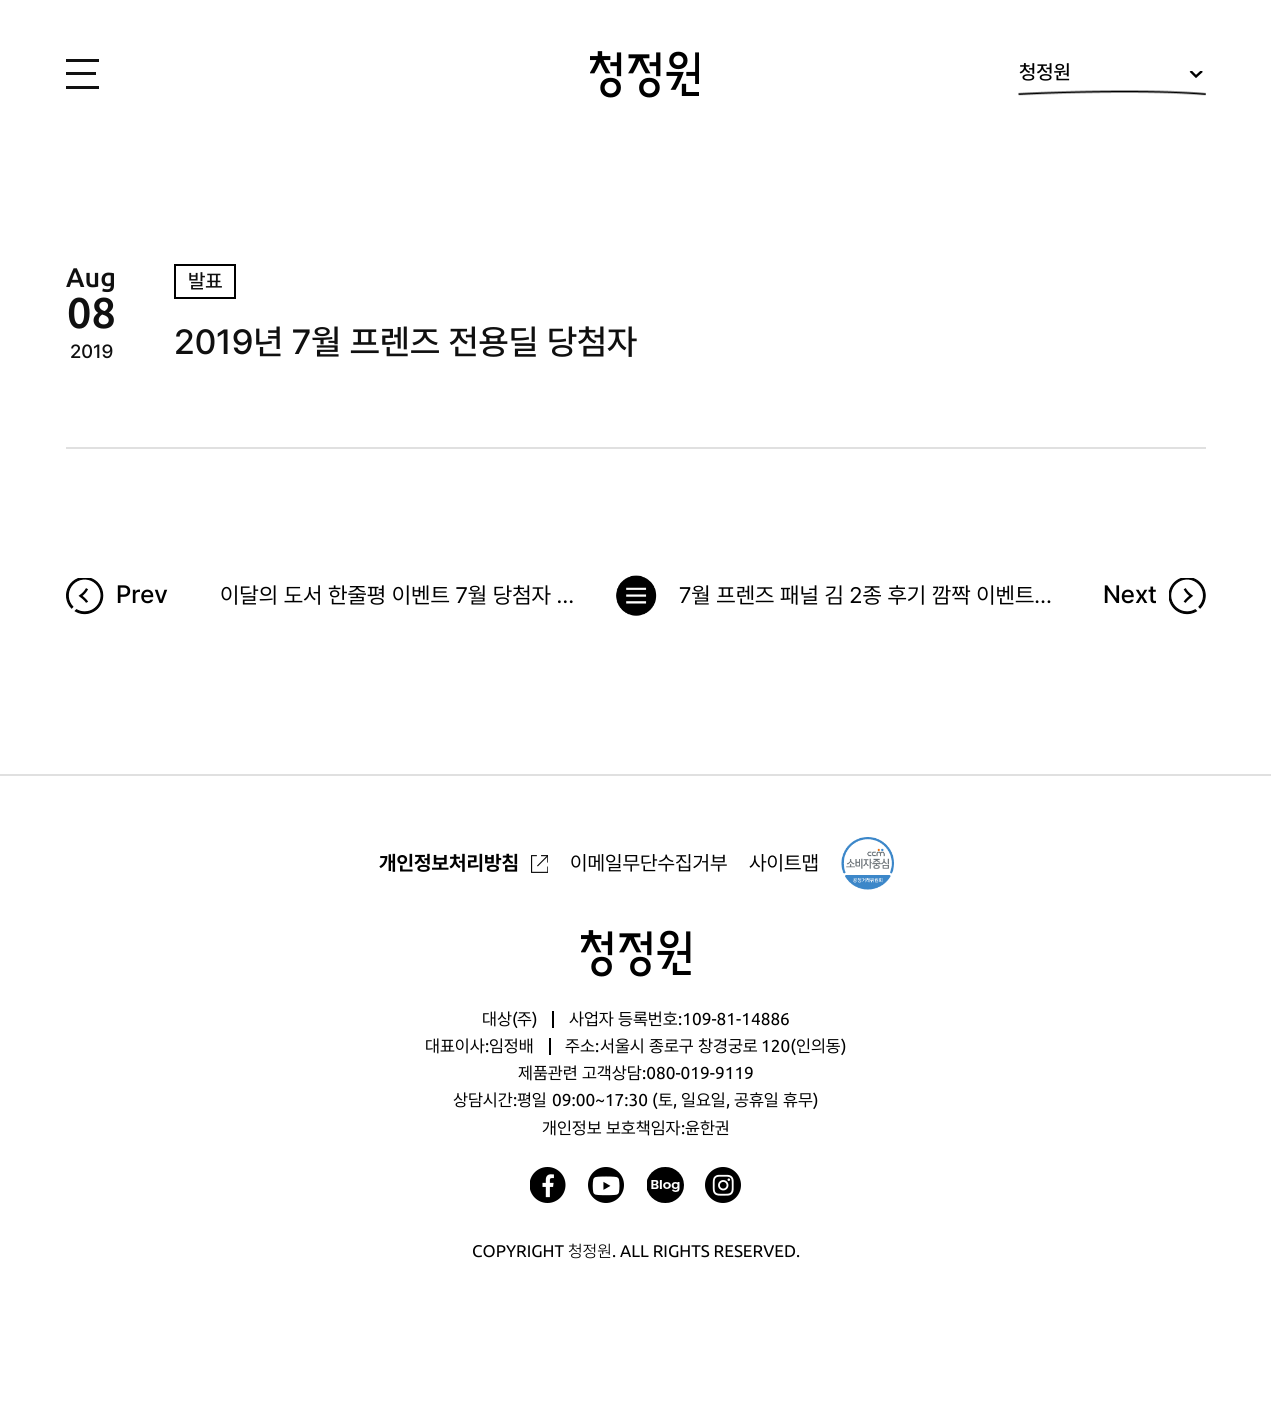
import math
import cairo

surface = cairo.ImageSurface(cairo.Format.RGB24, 1271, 1418)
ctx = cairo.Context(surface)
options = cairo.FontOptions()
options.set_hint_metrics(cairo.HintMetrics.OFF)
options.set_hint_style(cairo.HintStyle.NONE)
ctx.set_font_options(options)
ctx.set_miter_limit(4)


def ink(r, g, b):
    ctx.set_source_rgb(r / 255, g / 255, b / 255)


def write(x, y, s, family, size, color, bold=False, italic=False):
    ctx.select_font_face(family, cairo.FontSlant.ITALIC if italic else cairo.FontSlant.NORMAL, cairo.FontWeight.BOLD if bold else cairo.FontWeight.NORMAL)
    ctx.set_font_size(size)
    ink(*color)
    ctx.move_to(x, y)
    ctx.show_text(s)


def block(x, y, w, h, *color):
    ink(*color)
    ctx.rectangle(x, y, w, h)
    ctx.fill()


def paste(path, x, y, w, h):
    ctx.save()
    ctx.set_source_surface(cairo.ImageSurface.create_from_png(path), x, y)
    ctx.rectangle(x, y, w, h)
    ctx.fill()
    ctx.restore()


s1 = dict(family="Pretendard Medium", size=20, color=(0, 0, 0))
s2 = dict(family="Ubuntu Medium", size=27, color=(16, 16, 16))
s3 = dict(family="Ubuntu Medium", size=43, color=(16, 16, 16))
s4 = dict(family="Pretendard Medium", size=19, color=(16, 16, 16))
s5 = dict(family="Pretendard Medium", size=20, color=(16, 16, 16))
s6 = dict(family="Pretendard Medium", size=34.75, color=(16, 16, 16))
s7 = dict(family="Pretendard Medium", size=25, color=(0, 0, 0))
s8 = dict(family="Pretendard", size=22.4, color=(0, 0, 0))
s9 = dict(family="Pretendard", size=20.25, color=(0, 0, 0), bold=True)
s10 = dict(family="Pretendard", size=20.25, color=(0, 0, 0))
s11 = dict(family="Pretendard", size=17.25, color=(0, 0, 0))
s12 = dict(family="Ubuntu", size=17.25, color=(0, 0, 0))
s13 = dict(family="Ubuntu", size=16.9, color=(0, 0, 0))
s14 = dict(family="Pretendard Light", size=16.9, color=(0, 0, 0))

ink(255, 255, 255)
ctx.paint()
block(66, 59, 33, 3, 17, 17, 17)
block(66, 72, 30, 3, 17, 17, 17)
block(66, 86, 33, 3, 17, 17, 17)
paste("pic1.png", 590, 51, 109, 47)
write(1019, 79, "청정원", **s1)
ctx.save()
ctx.rectangle(1187, 71, 19, 7)
ctx.clip()
ctx.new_path()
ctx.move_to(1190.5, 71)
ctx.line_to(1196, 76.5)
ctx.line_to(1202, 71)
ctx.set_line_width(2.4)
ctx.stroke()
ctx.restore()
paste("pic2.png", 1018, 90, 188, 6)
block(66, 447, 1140, 2, 224, 224, 224)
write(66, 287, "Aug", **s2)
write(67, 328, "08", **s3)
write(70, 358, "2019", **s4)
ctx.rectangle(175, 265, 60, 33)
ink(0, 0, 0)
ctx.stroke()
write(188, 288, "발표", **s5)
write(174, 354, "2019년 7월 프렌즈 전용딜 당첨자", **s6)
paste("pic3.png", 616, 575, 41, 41)
paste("pic4.png", 66, 578, 38, 37)
write(116, 603, "Prev", **s7)
write(220, 603, "이달의 도서 한줄평 이벤트 7월 당첨자 …", **s8)
write(679, 603, "7월 프렌즈 패널 김 2종 후기 깜짝 이벤트…", **s8)
write(1103, 603, "Next", **s7)
paste("pic5.png", 1169, 578, 37, 37)
block(0, 774, 1271, 2, 224, 224, 224)
write(379, 870, "개인정보처리방침", **s9)
paste("pic6.png", 531, 855, 17, 18)
write(570, 870, "이메일무단수집거부", **s10)
write(749, 870, "사이트맵", **s10)
paste("pic7.png", 841, 837, 53, 53)
paste("pic8.png", 581, 930, 110, 47)
write(482, 1025, "대상", **s11)
write(512, 1025, "(", **s12)
write(517, 1025, "주", **s11)
write(532, 1025, ")", **s12)
block(552, 1011, 2, 17, 0, 0, 0)
write(569, 1025, "사업자 등록번호", **s11)
write(678, 1025, ":109-81-14886", **s12)
write(425, 1052, "대표이사 임정배", **s11)
block(549, 1038, 2, 17, 0, 0, 0)
write(485, 1052, ":", **s12)
write(565, 1052, "주소", **s11)
write(595, 1052, ":", **s12)
write(600, 1052, "서울시 종로구 창경궁로", **s11)
write(761, 1052, "120(", **s12)
write(796, 1052, "인의동", **s11)
write(841, 1052, ")", **s12)
write(518, 1079, "제품관련 고객상담", **s11)
write(642, 1079, ":080-019-9119", **s12)
write(453, 1106, "상담시간 평일", **s11)
write(552, 1106, "09:00~17:30 (", **s12)
write(658, 1106, "토", **s11)
write(681, 1106, "일요일", **s11)
write(734, 1106, "공휴일", **s11)
write(783, 1106, "휴무", **s11)
write(813, 1106, ")", **s12)
write(513, 1106, ":", **s12)
write(673, 1106, ",", **s12)
write(726, 1106, ",", **s12)
write(542, 1134, "개인정보 보호책임자", **s11)
write(681, 1134, ":", **s12)
write(685, 1134, "윤한권", **s11)
paste("pic9.png", 530, 1167, 36, 36)
paste("pic10.png", 588, 1167, 36, 36)
paste("pic11.png", 647, 1167, 37, 36)
paste("pic12.png", 705, 1167, 36, 36)
write(472, 1257, "COPYRIGHT", **s13)
write(568, 1257, "청정원", **s14)
write(612, 1257, ". ALL RIGHTS RESERVED.", **s13)
surface.write_to_png("screenshot.png")
